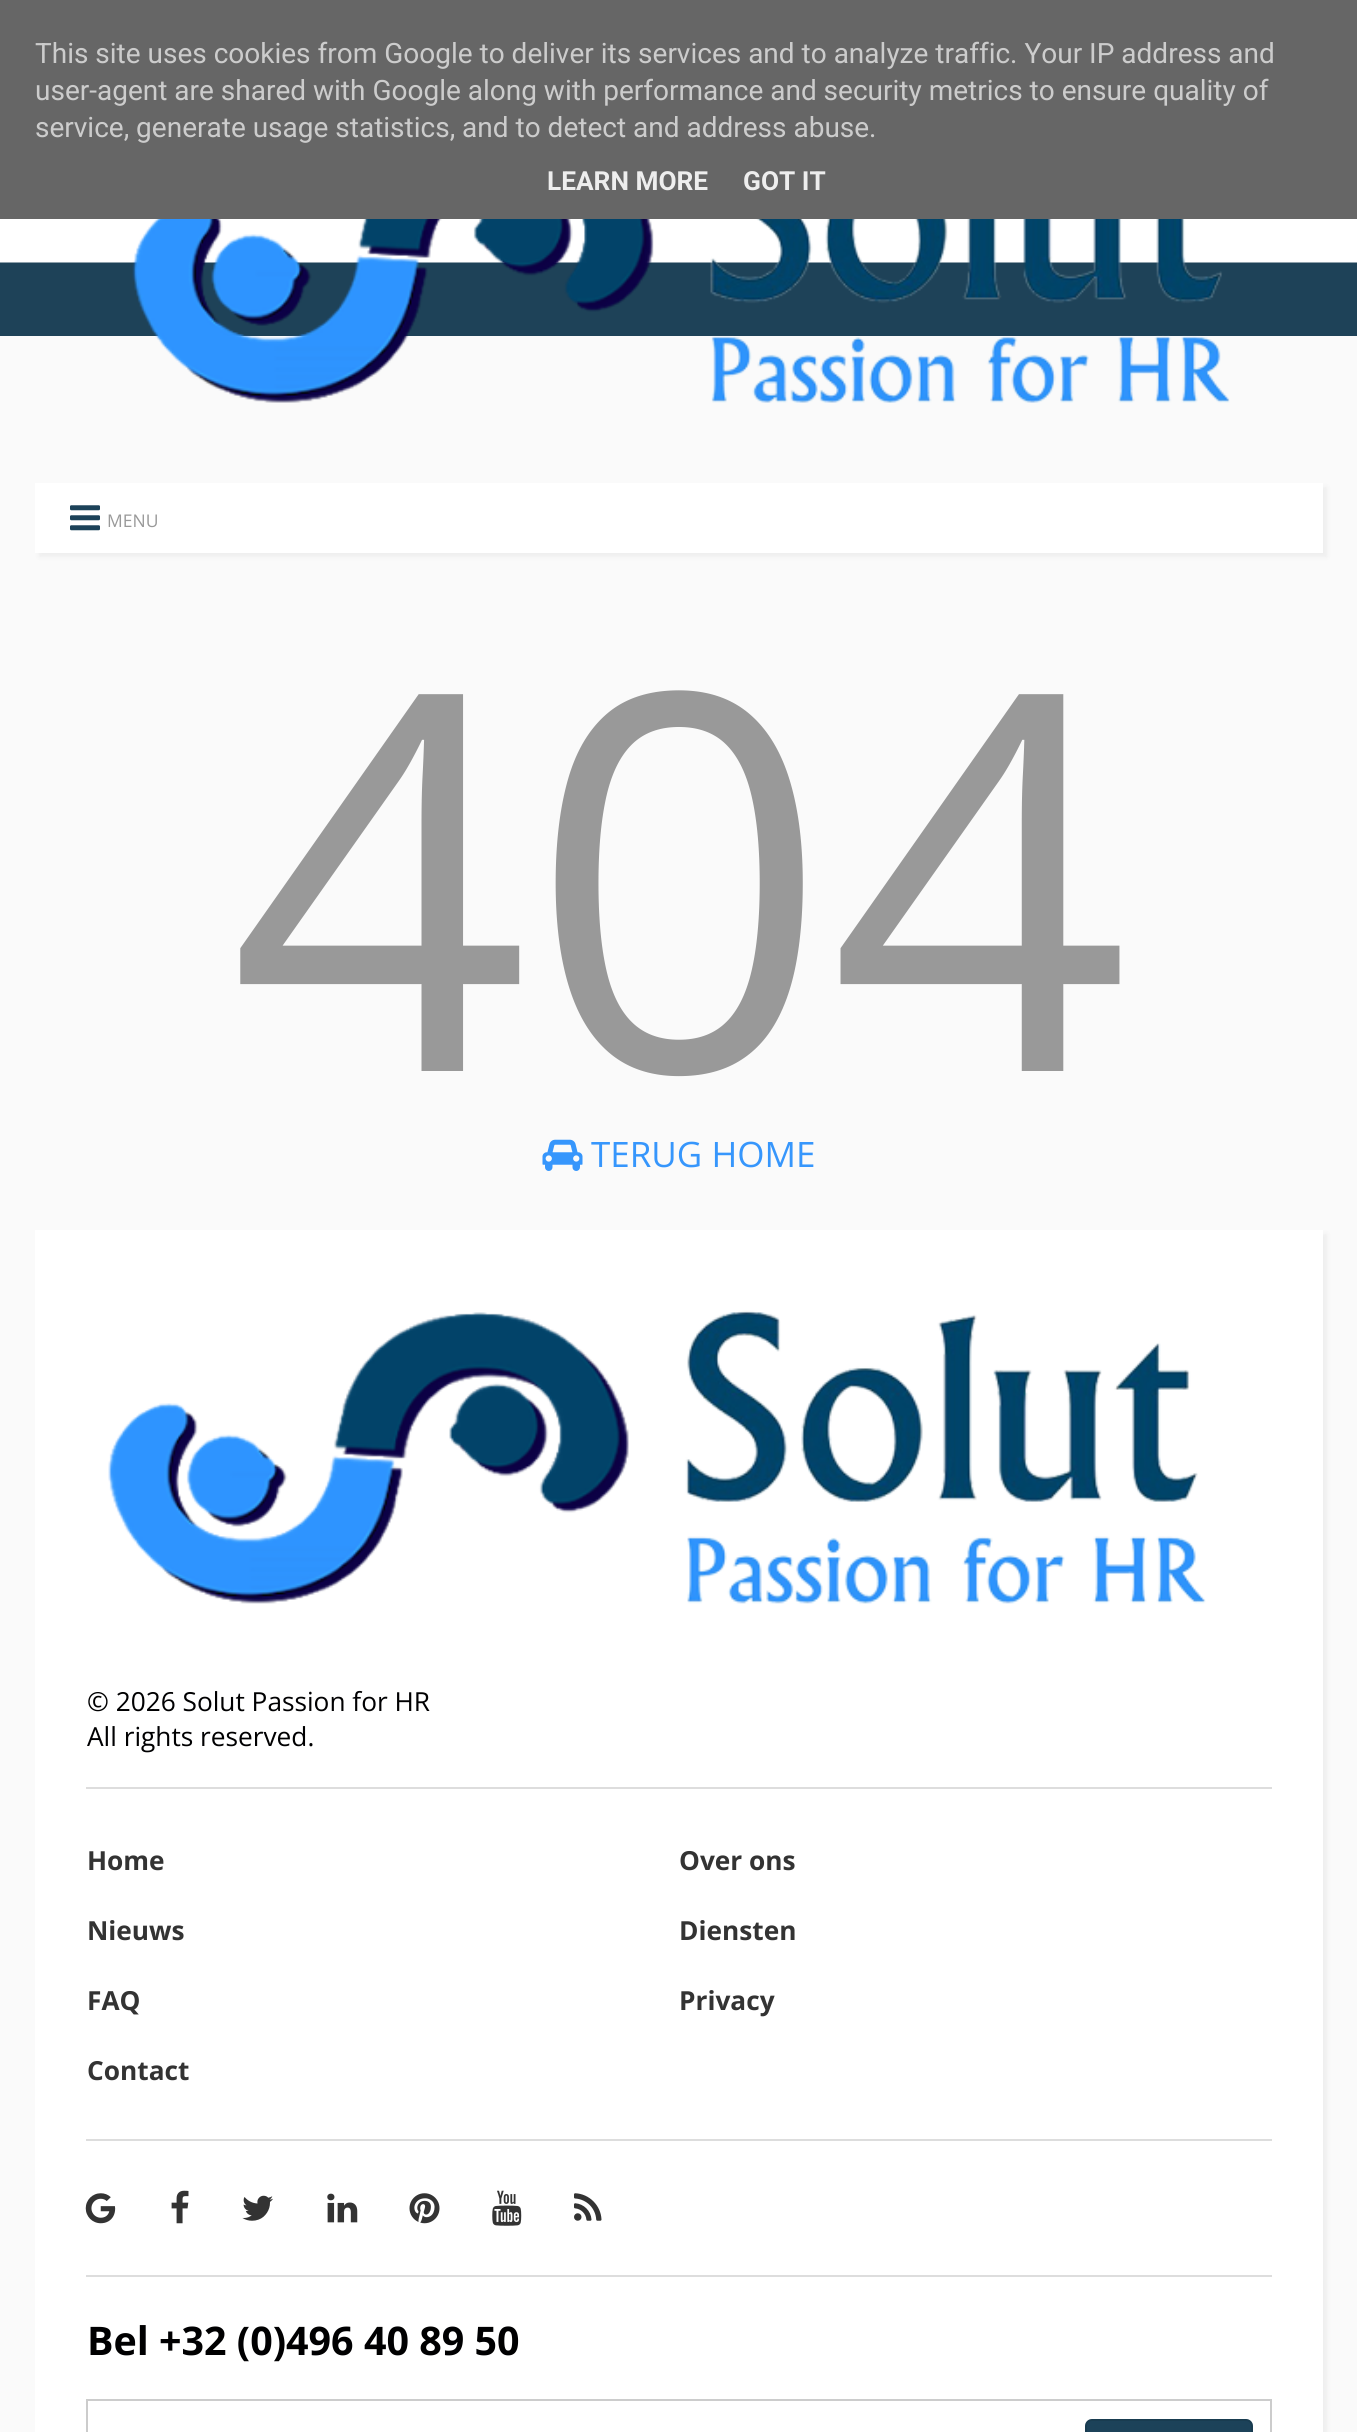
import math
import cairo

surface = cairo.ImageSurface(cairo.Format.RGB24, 1357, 2432)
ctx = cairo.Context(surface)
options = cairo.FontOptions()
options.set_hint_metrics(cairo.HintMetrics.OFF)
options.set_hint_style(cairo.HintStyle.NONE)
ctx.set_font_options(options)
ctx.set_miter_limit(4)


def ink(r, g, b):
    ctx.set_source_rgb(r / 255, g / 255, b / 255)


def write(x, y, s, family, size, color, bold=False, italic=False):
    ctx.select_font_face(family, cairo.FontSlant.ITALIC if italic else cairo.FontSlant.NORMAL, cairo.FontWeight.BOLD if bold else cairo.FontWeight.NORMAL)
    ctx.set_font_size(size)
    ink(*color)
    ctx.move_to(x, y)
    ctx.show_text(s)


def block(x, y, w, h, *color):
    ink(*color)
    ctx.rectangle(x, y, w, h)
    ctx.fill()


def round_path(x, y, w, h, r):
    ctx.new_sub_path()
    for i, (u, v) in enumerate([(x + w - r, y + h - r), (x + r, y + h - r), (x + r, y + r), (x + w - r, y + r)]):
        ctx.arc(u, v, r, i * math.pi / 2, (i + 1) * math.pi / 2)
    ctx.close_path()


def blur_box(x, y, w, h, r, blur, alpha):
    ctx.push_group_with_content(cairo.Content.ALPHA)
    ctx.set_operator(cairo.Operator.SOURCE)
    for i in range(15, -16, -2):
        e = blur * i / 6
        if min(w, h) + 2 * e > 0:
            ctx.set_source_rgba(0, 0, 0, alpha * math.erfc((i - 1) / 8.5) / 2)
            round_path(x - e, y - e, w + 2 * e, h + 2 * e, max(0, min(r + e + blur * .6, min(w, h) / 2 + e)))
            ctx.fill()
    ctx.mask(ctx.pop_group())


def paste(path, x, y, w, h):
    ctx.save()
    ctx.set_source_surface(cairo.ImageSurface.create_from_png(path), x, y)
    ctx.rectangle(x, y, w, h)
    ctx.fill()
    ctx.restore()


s1 = dict(family="Roboto", size=28, color=(204, 204, 204))
s2 = dict(family="Roboto", size=26.25, color=(238, 238, 238), bold=True)
s3 = dict(family="Open Sans", size=17.5, color=(153, 153, 153))
s4 = dict(family="Open Sans", size=525, color=(153, 153, 153))
s5 = dict(family="Open Sans", size=35, color=(54, 150, 252))
s6 = dict(family="Open Sans", size=26.25, color=(0, 0, 1))
s7 = dict(family="Open Sans", size=26.25, color=(51, 51, 51), bold=True)
s8 = dict(family="Open Sans", size=39.4, color=(0, 0, 1), bold=True)

ink(250, 250, 250)
ctx.paint()
paste("pic1.png", 0, 219, 1357, 117)
block(0, 0, 1357, 219, 102, 102, 102)
write(35, 63, "This site uses cookies from Google to deliver its services and to analyze traffic. Your IP address and", **s1)
write(35, 100, "user-agent are shared with Google along with performance and security metrics to ensure quality of", **s1)
write(35, 137, "service, generate usage statistics, and to detect and address abuse.", **s1)
write(547, 190, "LEARN MORE", **s2)
write(743, 190, "GOT IT", **s2)
paste("pic2.png", 132, 219, 1098, 184)
ink(0, 0, 0)
blur_box(39, 487, 1288, 70, 0, 2.5, 0.05)
block(35, 483, 1288, 70, 255, 255, 255)
paste("pic3.png", 70, 505, 30, 26)
write(107, 527, "MENU", **s3)
write(229, 1071, "404", **s4)
paste("pic4.png", 542, 1139, 41, 32)
write(591, 1167, "TERUG HOME", **s5)
ink(0, 0, 0)
blur_box(39, 1234, 1288, 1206, 0, 2.5, 0.05)
block(35, 1230, 1288, 1202, 255, 255, 255)
paste("pic5.png", 108, 1310, 1098, 294)
write(87, 1711, "© 2026 Solut Passion for HR", **s6)
write(87, 1746, "All rights reserved.", **s6)
block(86, 1787, 1186, 2, 221, 221, 221)
write(87, 1870, "Home", **s7)
write(679, 1870, "Over ons", **s7)
write(87, 1940, "Nieuws", **s7)
write(679, 1940, "Diensten", **s7)
write(87, 2010, "FAQ", **s7)
write(679, 2010, "Privacy", **s7)
write(87, 2080, "Contact", **s7)
block(86, 2139, 1186, 2, 221, 221, 221)
block(86, 2275, 1186, 2, 221, 221, 221)
paste("pic6.png", 85, 2193, 31, 31)
paste("pic7.png", 171, 2190, 18, 34)
paste("pic8.png", 242, 2195, 31, 26)
paste("pic9.png", 327, 2193, 31, 30)
paste("pic10.png", 409, 2193, 31, 31)
paste("pic11.png", 492, 2190, 30, 36)
paste("pic12.png", 574, 2193, 28, 28)
write(87, 2355, "Bel +32 (0)496 40 89 50", **s8)
ctx.rectangle(87, 2400, 1184, 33)
ink(204, 204, 204)
ctx.stroke()
ink(28, 66, 89)
round_path(1085, 2419, 168, 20, 7)
ctx.fill()
round_path(1086, 2420, 166, 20, 6)
ctx.set_source_rgba(0, 0, 0, 0.1)
ctx.stroke()
surface.write_to_png("screenshot.png")
